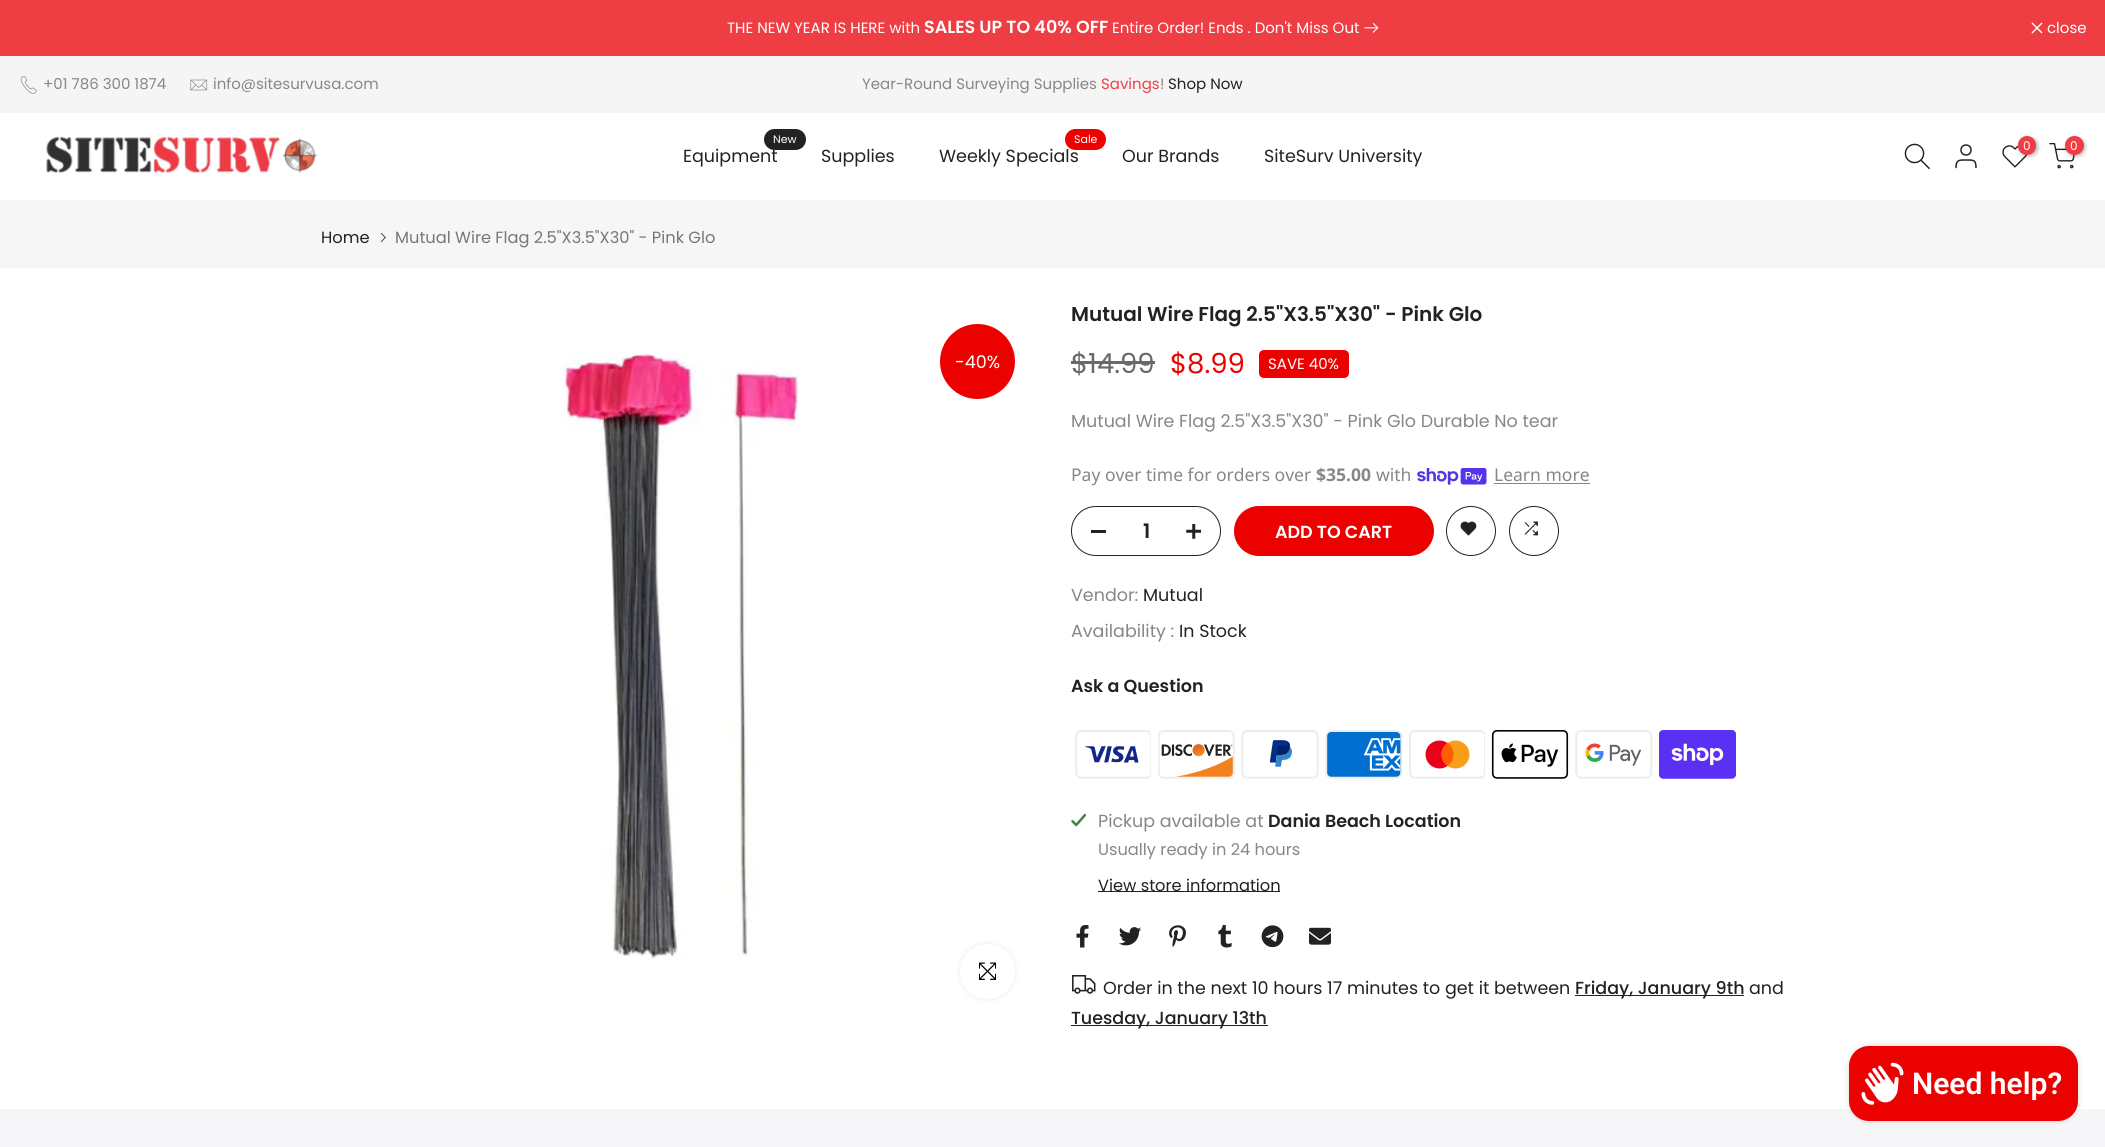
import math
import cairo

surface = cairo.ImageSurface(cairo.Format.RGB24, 2105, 1147)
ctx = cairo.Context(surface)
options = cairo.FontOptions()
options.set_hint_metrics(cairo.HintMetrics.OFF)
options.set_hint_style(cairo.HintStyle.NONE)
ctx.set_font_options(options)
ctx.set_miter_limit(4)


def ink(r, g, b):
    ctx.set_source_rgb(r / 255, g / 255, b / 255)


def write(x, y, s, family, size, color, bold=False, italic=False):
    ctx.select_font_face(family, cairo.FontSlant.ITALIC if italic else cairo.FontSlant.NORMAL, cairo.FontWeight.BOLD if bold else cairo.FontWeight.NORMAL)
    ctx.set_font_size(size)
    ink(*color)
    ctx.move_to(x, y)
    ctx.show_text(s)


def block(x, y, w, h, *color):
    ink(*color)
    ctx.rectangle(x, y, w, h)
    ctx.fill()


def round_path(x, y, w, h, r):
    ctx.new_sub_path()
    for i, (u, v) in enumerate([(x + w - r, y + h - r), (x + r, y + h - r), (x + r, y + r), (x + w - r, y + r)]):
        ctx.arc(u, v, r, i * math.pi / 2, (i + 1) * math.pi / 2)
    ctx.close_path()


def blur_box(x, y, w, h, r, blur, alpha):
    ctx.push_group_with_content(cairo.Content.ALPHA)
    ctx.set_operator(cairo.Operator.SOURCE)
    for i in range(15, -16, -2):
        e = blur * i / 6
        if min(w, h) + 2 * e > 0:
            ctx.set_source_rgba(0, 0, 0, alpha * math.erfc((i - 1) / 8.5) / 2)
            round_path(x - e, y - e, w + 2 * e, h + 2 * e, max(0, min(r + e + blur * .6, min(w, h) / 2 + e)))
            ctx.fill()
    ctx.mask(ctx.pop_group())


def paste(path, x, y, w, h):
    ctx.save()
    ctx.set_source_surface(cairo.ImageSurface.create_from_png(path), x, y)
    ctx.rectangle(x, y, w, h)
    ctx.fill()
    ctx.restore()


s1 = dict(family="Poppins", size=15, color=(255, 255, 255))
s2 = dict(family="Poppins SemiBold", size=17.5, color=(255, 255, 255))
s3 = dict(family="Poppins", size=15, color=(135, 135, 135))
s4 = dict(family="Poppins", size=15, color=(239, 61, 68))
s5 = dict(family="Poppins", size=15, color=(34, 34, 34))
s6 = dict(family="Poppins", size=11, color=(255, 255, 255))
s7 = dict(family="Poppins", size=17.5, color=(34, 34, 34))
s8 = dict(family="Poppins", size=12, color=(255, 255, 255))
s9 = dict(family="Poppins", size=16.25, color=(34, 34, 34))
s10 = dict(family="Poppins", size=16.25, color=(119, 119, 119))
s11 = dict(family="Poppins", size=17.5, color=(255, 255, 255))
s12 = dict(family="Poppins SemiBold", size=20, color=(34, 34, 34))
s13 = dict(family="Poppins", size=27.5, color=(105, 105, 105))
s14 = dict(family="Poppins", size=27.5, color=(236, 1, 1))
s15 = dict(family="Poppins", size=17.5, color=(135, 135, 135))
s16 = dict(family="Noto Sans", size=17.5, color=(135, 135, 135))
s17 = dict(family="Noto Sans", size=17.5, color=(135, 135, 135), bold=True)
s18 = dict(family="Poppins SemiBold", size=17.5, color=(34, 34, 34))
s19 = dict(family="Poppins", size=16.25, color=(135, 135, 135))
s20 = dict(family="Poppins Medium", size=17.5, color=(34, 34, 34))
s21 = dict(family="Roboto SemiBold", size=30, color=(255, 255, 255))

ink(255, 255, 255)
ctx.paint()
block(0, 0, 2105, 56, 239, 61, 68)
write(727, 33, "THE NEW YEAR IS HERE with", **s1)
write(924, 33, "SALES UP TO 40% OFF", **s2)
write(1112, 33, "Entire Order! Ends . Don't Miss Out", **s1)
paste("pic1.png", 1364, 23, 15, 10)
ctx.new_path()
ctx.move_to(2042, 23)
ctx.line_to(2032, 33)
ctx.move_to(2042, 33)
ctx.line_to(2032, 23)
ctx.set_line_width(1.4)
ctx.stroke()
write(2047, 33, "close", **s1)
block(0, 56, 2105, 57, 245, 245, 245)
paste("pic2.png", 20, 76, 17, 18)
write(43, 89, "+01 786 300 1874", **s3)
paste("pic3.png", 190, 79, 18, 12)
write(213, 89, "info@sitesurvusa.com", **s3)
write(862, 89, "Year-Round Surveying Supplies", **s3)
write(1101, 89, "Savings", **s4)
write(1160, 89, "!", **s3)
write(1168, 89, "Shop Now", **s5)
paste("pic4.png", 46, 136, 272, 37)
round_path(764, 129, 42, 21, 10.5)
ctx.fill()
write(773, 143, "New", **s6)
write(683, 162, "Equipment", **s7)
write(821, 162, "Supplies", **s7)
write(939, 162, "Weekly Specials", **s7)
ink(236, 1, 1)
round_path(1065, 129, 41, 21, 10.5)
ctx.fill()
write(1074, 143, "Sale", **s6)
write(1122, 162, "Our Brands", **s7)
write(1264, 162, "SiteSurv University", **s7)
paste("pic5.png", 1904, 143, 26, 27)
ctx.arc(1966, 150, 5, 0, 2 * math.pi)
ctx.set_line_width(1.5)
ctx.stroke()
ctx.new_path()
ctx.move_to(1976, 167.5)
ctx.curve_to(1976, 159.5, 1973, 160, 1966, 160)
ctx.curve_to(1959.5, 160, 1956, 159.5, 1956, 167.5)
ctx.set_line_cap(cairo.LineCap.ROUND)
ctx.set_line_join(cairo.LineJoin.ROUND)
ctx.stroke()
paste("pic6.png", 2002, 145, 26, 23)
ink(0, 0, 0)
blur_box(2019, 138, 19, 18, 9, 2, 0.3)
ink(239, 61, 68)
round_path(2018, 136, 18, 19, 9)
ctx.fill()
write(2023, 150, "0", **s8)
paste("pic7.png", 2049, 143, 26, 26)
ink(0, 0, 0)
blur_box(2066, 138, 19, 18, 9, 2, 0.3)
ink(239, 61, 68)
ctx.arc(2074.5, 145.5, 9.5, 0, 2 * math.pi)
ctx.fill()
write(2070, 150, "0", **s8)
block(0, 200, 2105, 68, 246, 246, 246)
write(321, 243, "Home", **s9)
paste("pic8.png", 380, 233, 6, 9)
write(395, 243, "Mutual Wire Flag 2.5\"X3.5\"X30\" - Pink Glo", **s10)
paste("pic9.png", 563, 352, 238, 608)
ink(236, 1, 1)
ctx.arc(977.5, 361.5, 37.5, 0, 2 * math.pi)
ctx.fill()
write(955, 368, "-40%", **s11)
ink(0, 0, 0)
blur_box(960, 944, 55, 55, 27.5, 3, 0.09)
ink(255, 255, 255)
ctx.arc(987.5, 971.5, 27.5, 0, 2 * math.pi)
ctx.fill()
paste("pic10.png", 979, 962, 17, 18)
write(1071, 321, "Mutual Wire Flag 2.5\"X3.5\"X30\" - Pink Glo", **s12)
write(1071, 373, "$14.99", **s13)
block(1071, 361, 84, 3, 105, 105, 105)
write(1170, 373, "$8.99", **s14)
round_path(1259, 350, 90, 28, 5)
ctx.fill()
write(1268, 369, "SAVE 40%", **s1)
write(1071, 427, "Mutual Wire Flag 2.5\"X3.5\"X30\" - Pink Glo Durable No tear", **s15)
write(1071, 481, "Pay over time for orders over", **s16)
write(1316, 481, "$35.00", **s17)
write(1376, 481, "with", **s16)
paste("pic11.png", 1417, 468, 70, 17)
write(1494, 481, "Learn more", **s16)
block(1494, 483, 96, 1, 135, 135, 135)
round_path(1071.5, 506.5, 149, 49, 24.5)
ink(34, 34, 34)
ctx.set_line_width(1)
ctx.set_line_cap(cairo.LineCap.BUTT)
ctx.set_line_join(cairo.LineJoin.MITER)
ctx.stroke()
block(1091, 530, 15, 3, 34, 34, 34)
write(1143, 538, "1", **s12)
paste("pic12.png", 1186, 524, 15, 15)
ink(236, 1, 1)
round_path(1234, 506, 200, 50, 25)
ctx.fill()
write(1275, 538, "ADD TO CART", **s2)
ctx.new_path()
ctx.arc(1471, 531, 24.5, 0, 2 * math.pi)
ink(34, 34, 34)
ctx.stroke()
paste("pic13.png", 1460, 521, 17, 15)
ctx.arc(1534, 531, 24.5, 0, 2 * math.pi)
ctx.stroke()
paste("pic14.png", 1524, 521, 14, 15)
write(1071, 601, "Vendor:", **s15)
write(1143, 601, "Mutual", **s7)
write(1071, 637, "Availability :", **s15)
write(1179, 637, "In Stock", **s7)
write(1071, 692, "Ask a Question", **s18)
paste("pic15.png", 1075, 730, 76, 49)
paste("pic16.png", 1158, 730, 77, 49)
paste("pic17.png", 1241, 730, 78, 49)
paste("pic18.png", 1325, 730, 78, 49)
paste("pic19.png", 1409, 730, 76, 49)
paste("pic20.png", 1491, 730, 78, 49)
paste("pic21.png", 1575, 730, 78, 49)
paste("pic22.png", 1659, 730, 77, 49)
paste("pic23.png", 1071, 813, 15, 14)
write(1098, 827, "Pickup available at", **s15)
write(1268, 827, "Dania Beach Location", **s18)
write(1098, 855, "Usually ready in 24 hours", **s19)
block(1098, 891, 182, 1, 34, 34, 34)
write(1098, 891, "View store information", **s9)
paste("pic24.png", 1076, 925, 13, 23)
paste("pic25.png", 1119, 927, 22, 19)
paste("pic26.png", 1169, 925, 17, 23)
paste("pic27.png", 1218, 925, 14, 23)
paste("pic28.png", 1261, 925, 23, 23)
paste("pic29.png", 1309, 927, 22, 18)
paste("pic30.png", 1072, 975, 24, 19)
write(1103, 994, "Order in the next 10 hours 17 minutes to get it between", **s7)
block(1575, 995, 169, 1, 34, 34, 34)
write(1575, 994, "Friday, January 9th", **s20)
write(1749, 994, "and", **s7)
block(1071, 1025, 197, 1, 34, 34, 34)
write(1071, 1024, "Tuesday, January 13th", **s20)
block(0, 1109, 2105, 38, 246, 246, 248)
ink(0, 0, 0)
blur_box(1849, 1046, 229, 75, 20, 3, 0.15)
ink(236, 1, 1)
round_path(1849, 1046, 229, 75, 20)
ctx.fill()
paste("pic31.png", 1861, 1062, 43, 43)
write(1912, 1094, "Need help?", **s21)
surface.write_to_png("screenshot.png")
